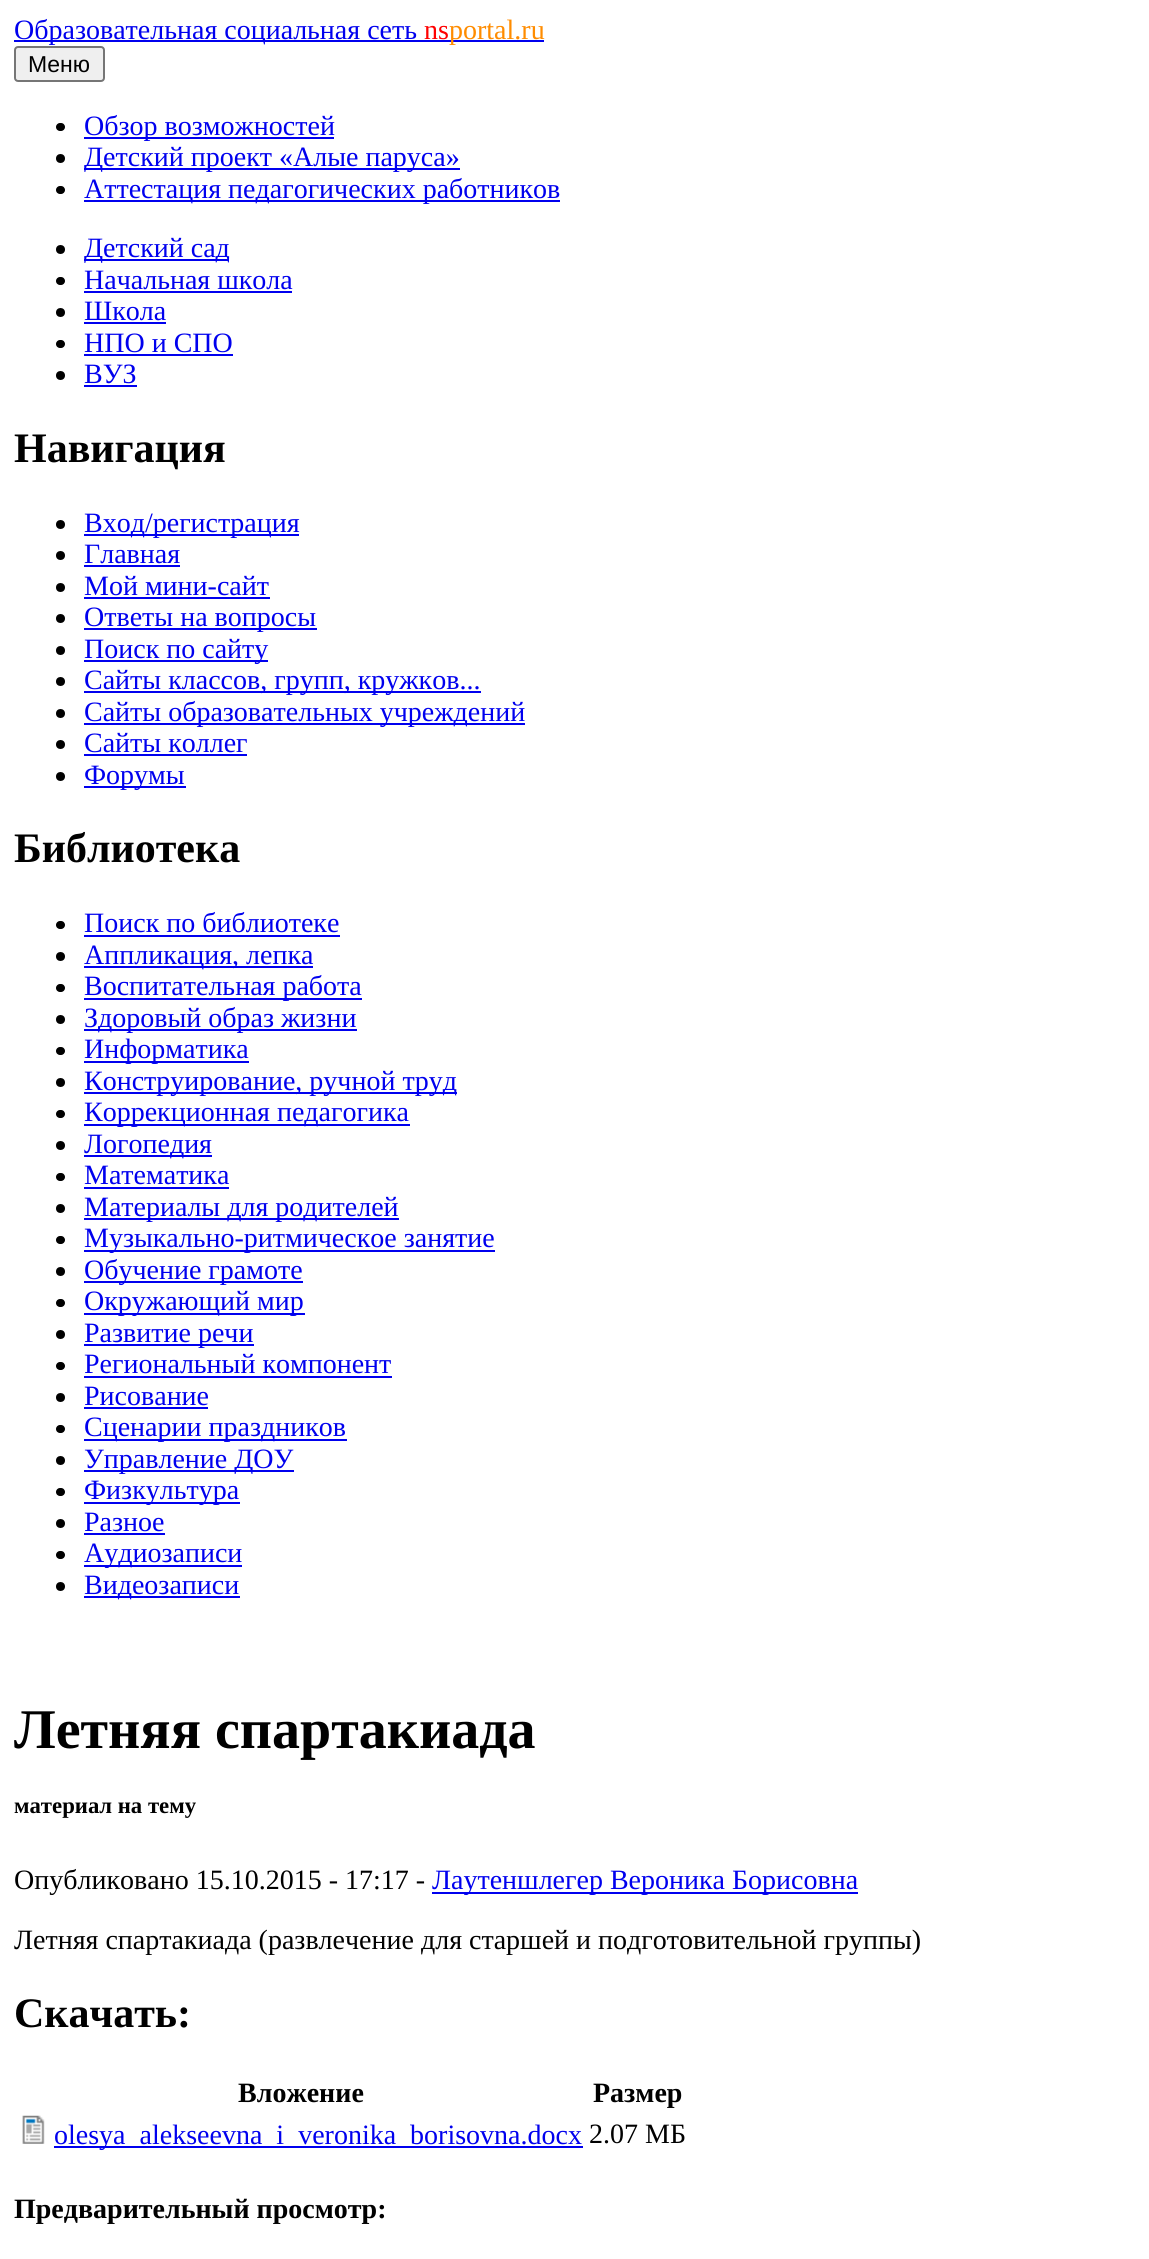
import math
import cairo

surface = cairo.ImageSurface(cairo.Format.RGB24, 1149, 2259)
ctx = cairo.Context(surface)
options = cairo.FontOptions()
options.set_hint_metrics(cairo.HintMetrics.OFF)
options.set_hint_style(cairo.HintStyle.NONE)
ctx.set_font_options(options)
ctx.set_miter_limit(4)


def ink(r, g, b):
    ctx.set_source_rgb(r / 255, g / 255, b / 255)


def write(x, y, s, family, size, color, bold=False, italic=False):
    ctx.select_font_face(family, cairo.FontSlant.ITALIC if italic else cairo.FontSlant.NORMAL, cairo.FontWeight.BOLD if bold else cairo.FontWeight.NORMAL)
    ctx.set_font_size(size)
    ink(*color)
    ctx.move_to(x, y)
    ctx.show_text(s)


def block(x, y, w, h, *color):
    ink(*color)
    ctx.rectangle(x, y, w, h)
    ctx.fill()


def round_path(x, y, w, h, r):
    ctx.new_sub_path()
    for i, (u, v) in enumerate([(x + w - r, y + h - r), (x + r, y + h - r), (x + r, y + r), (x + w - r, y + r)]):
        ctx.arc(u, v, r, i * math.pi / 2, (i + 1) * math.pi / 2)
    ctx.close_path()


def paste(path, x, y, w, h):
    ctx.save()
    ctx.set_source_surface(cairo.ImageSurface.create_from_png(path), x, y)
    ctx.rectangle(x, y, w, h)
    ctx.fill()
    ctx.restore()


s1 = dict(family="Liberation Serif", size=28, color=(0, 0, 238))
s2 = dict(family="Liberation Serif", size=28, color=(255, 0, 0))
s3 = dict(family="Liberation Serif", size=28, color=(255, 140, 0))
s4 = dict(family="Liberation Sans", size=23, color=(0, 0, 0))
s5 = dict(family="Liberation Serif", size=42, color=(0, 0, 0), bold=True)
s6 = dict(family="Liberation Serif", size=56, color=(0, 0, 0), bold=True)
s7 = dict(family="Liberation Serif", size=22.75, color=(0, 0, 0), bold=True)
s8 = dict(family="Liberation Serif", size=28, color=(0, 0, 0))
s9 = dict(family="Liberation Serif", size=28, color=(0, 0, 0), bold=True)

ink(255, 255, 255)
ctx.paint()
block(14, 40, 530, 2, 0, 0, 238)
write(14, 39, "Образовательная социальная сеть", **s1)
write(424, 39, "ns", **s2)
write(449, 39, "portal.ru", **s3)
ink(239, 239, 239)
round_path(15, 47, 89, 34, 3)
ctx.fill_preserve()
ink(118, 118, 118)
ctx.stroke()
write(28, 72, "Меню", **s4)
round_path(56, 123, 9, 8, 4)
ctx.fill()
block(84, 137, 250, 2, 0, 0, 238)
write(84, 135, "Обзор возможностей", **s1)
ink(0, 0, 0)
ctx.new_path()
ctx.arc(60.5, 158.5, 4.5, 0, 2 * math.pi)
ctx.fill()
block(84, 168, 376, 2, 0, 0, 238)
write(84, 166, "Детский проект «Алые паруса»", **s1)
ink(0, 0, 0)
round_path(56, 186, 9, 8, 4)
ctx.fill()
block(84, 200, 476, 2, 0, 0, 238)
write(84, 198, "Аттестация педагогических работников", **s1)
ink(0, 0, 0)
ctx.new_path()
ctx.arc(60.5, 249.5, 4.5, 0, 2 * math.pi)
ctx.fill()
block(84, 259, 145, 2, 0, 0, 238)
write(84, 257, "Детский сад", **s1)
ink(0, 0, 0)
round_path(56, 277, 9, 8, 4)
ctx.fill()
write(84, 289, "Начальная школа", **s1)
block(84, 291, 208, 2, 0, 0, 238)
ink(0, 0, 0)
ctx.new_path()
ctx.arc(60.5, 312.5, 4.5, 0, 2 * math.pi)
ctx.fill()
write(84, 320, "Школа", **s1)
block(84, 322, 82, 2, 0, 0, 238)
ink(0, 0, 0)
round_path(56, 340, 9, 8, 4)
ctx.fill()
write(84, 352, "НПО и СПО", **s1)
block(84, 354, 149, 2, 0, 0, 238)
ink(0, 0, 0)
ctx.new_path()
ctx.arc(60.5, 375.5, 4.5, 0, 2 * math.pi)
ctx.fill()
write(84, 383, "ВУЗ", **s1)
block(84, 385, 53, 2, 0, 0, 238)
write(14, 462, "Навигация", **s5)
ctx.new_path()
ctx.arc(60.5, 524.5, 4.5, 0, 2 * math.pi)
ctx.fill()
block(84, 534, 215, 2, 0, 0, 238)
write(84, 532, "Вход/регистрация", **s1)
ink(0, 0, 0)
ctx.new_path()
ctx.arc(60.5, 555.5, 4.5, 0, 2 * math.pi)
ctx.fill()
write(84, 563, "Главная", **s1)
block(84, 565, 96, 2, 0, 0, 238)
ink(0, 0, 0)
ctx.new_path()
ctx.arc(60.5, 587.5, 4.5, 0, 2 * math.pi)
ctx.fill()
write(84, 595, "Мой мини-сайт", **s1)
block(84, 597, 186, 2, 0, 0, 238)
ink(0, 0, 0)
ctx.new_path()
ctx.arc(60.5, 618.5, 4.5, 0, 2 * math.pi)
ctx.fill()
block(84, 628, 233, 2, 0, 0, 238)
write(84, 626, "Ответы на вопросы", **s1)
ink(0, 0, 0)
ctx.new_path()
ctx.arc(60.5, 650.5, 4.5, 0, 2 * math.pi)
ctx.fill()
block(84, 660, 184, 2, 0, 0, 238)
write(84, 658, "Поиск по сайту", **s1)
ink(0, 0, 0)
ctx.new_path()
ctx.arc(60.5, 681.5, 4.5, 0, 2 * math.pi)
ctx.fill()
block(84, 691, 397, 2, 0, 0, 238)
write(84, 689, "Сайты классов, групп, кружков...", **s1)
ink(0, 0, 0)
ctx.new_path()
ctx.arc(60.5, 713.5, 4.5, 0, 2 * math.pi)
ctx.fill()
block(84, 723, 441, 2, 0, 0, 238)
write(84, 721, "Сайты образовательных учреждений", **s1)
ink(0, 0, 0)
ctx.new_path()
ctx.arc(60.5, 744.5, 4.5, 0, 2 * math.pi)
ctx.fill()
write(84, 752, "Сайты коллег", **s1)
block(84, 754, 163, 2, 0, 0, 238)
ink(0, 0, 0)
ctx.new_path()
ctx.arc(60.5, 776.5, 4.5, 0, 2 * math.pi)
ctx.fill()
block(84, 786, 102, 2, 0, 0, 238)
write(84, 784, "Форумы", **s1)
write(14, 862, "Библиотека", **s5)
round_path(56, 921, 9, 8, 4)
ctx.fill()
write(84, 932, "Поиск по библиотеке", **s1)
block(84, 935, 256, 2, 0, 0, 238)
ink(0, 0, 0)
ctx.new_path()
ctx.arc(60.5, 956.5, 4.5, 0, 2 * math.pi)
ctx.fill()
block(84, 966, 229, 2, 0, 0, 238)
write(84, 964, "Аппликация, лепка", **s1)
ink(0, 0, 0)
round_path(56, 984, 9, 8, 4)
ctx.fill()
block(84, 998, 278, 2, 0, 0, 238)
write(84, 995, "Воспитательная работа", **s1)
ink(0, 0, 0)
ctx.new_path()
ctx.arc(60.5, 1019.5, 4.5, 0, 2 * math.pi)
ctx.fill()
block(84, 1029, 273, 2, 0, 0, 238)
write(84, 1027, "Здоровый образ жизни", **s1)
ink(0, 0, 0)
round_path(56, 1047, 9, 8, 4)
ctx.fill()
block(84, 1061, 165, 2, 0, 0, 238)
write(84, 1058, "Информатика", **s1)
ink(0, 0, 0)
ctx.new_path()
ctx.arc(60.5, 1082.5, 4.5, 0, 2 * math.pi)
ctx.fill()
block(84, 1092, 373, 2, 0, 0, 238)
write(84, 1090, "Конструирование, ручной труд", **s1)
ink(0, 0, 0)
round_path(56, 1110, 9, 8, 4)
ctx.fill()
block(84, 1124, 326, 2, 0, 0, 238)
write(84, 1121, "Коррекционная педагогика", **s1)
ink(0, 0, 0)
ctx.new_path()
ctx.arc(60.5, 1145.5, 4.5, 0, 2 * math.pi)
ctx.fill()
block(84, 1155, 128, 2, 0, 0, 238)
write(84, 1153, "Логопедия", **s1)
ink(0, 0, 0)
round_path(56, 1173, 9, 8, 4)
ctx.fill()
write(84, 1184, "Математика", **s1)
block(84, 1187, 145, 2, 0, 0, 238)
ink(0, 0, 0)
ctx.new_path()
ctx.arc(60.5, 1208.5, 4.5, 0, 2 * math.pi)
ctx.fill()
block(84, 1218, 315, 2, 0, 0, 238)
write(84, 1216, "Материалы для родителей", **s1)
ink(0, 0, 0)
round_path(56, 1236, 9, 8, 4)
ctx.fill()
block(84, 1250, 411, 2, 0, 0, 238)
write(84, 1247, "Музыкально-ритмическое занятие", **s1)
ink(0, 0, 0)
ctx.new_path()
ctx.arc(60.5, 1271.5, 4.5, 0, 2 * math.pi)
ctx.fill()
block(84, 1281, 219, 2, 0, 0, 238)
write(84, 1279, "Обучение грамоте", **s1)
ink(0, 0, 0)
round_path(56, 1299, 9, 8, 4)
ctx.fill()
block(84, 1313, 221, 2, 0, 0, 238)
write(84, 1310, "Окружающий мир", **s1)
ink(0, 0, 0)
ctx.new_path()
ctx.arc(60.5, 1334.5, 4.5, 0, 2 * math.pi)
ctx.fill()
block(84, 1344, 170, 2, 0, 0, 238)
write(84, 1342, "Развитие речи", **s1)
ink(0, 0, 0)
round_path(56, 1362, 9, 8, 4)
ctx.fill()
write(84, 1373, "Региональный компонент", **s1)
block(84, 1376, 308, 2, 0, 0, 238)
ink(0, 0, 0)
ctx.new_path()
ctx.arc(60.5, 1397.5, 4.5, 0, 2 * math.pi)
ctx.fill()
write(84, 1405, "Рисование", **s1)
block(84, 1407, 124, 2, 0, 0, 238)
ink(0, 0, 0)
round_path(56, 1425, 9, 8, 4)
ctx.fill()
block(84, 1439, 263, 2, 0, 0, 238)
write(84, 1436, "Сценарии праздников", **s1)
ink(0, 0, 0)
ctx.new_path()
ctx.arc(60.5, 1460.5, 4.5, 0, 2 * math.pi)
ctx.fill()
block(84, 1470, 210, 2, 0, 0, 238)
write(84, 1468, "Управление ДОУ", **s1)
ink(0, 0, 0)
round_path(56, 1488, 9, 8, 4)
ctx.fill()
block(84, 1502, 156, 2, 0, 0, 238)
write(84, 1499, "Физкультура", **s1)
ink(0, 0, 0)
ctx.new_path()
ctx.arc(60.5, 1523.5, 4.5, 0, 2 * math.pi)
ctx.fill()
write(84, 1531, "Разное", **s1)
block(84, 1533, 81, 2, 0, 0, 238)
ink(0, 0, 0)
round_path(56, 1551, 9, 8, 4)
ctx.fill()
block(84, 1565, 158, 2, 0, 0, 238)
write(84, 1562, "Аудиозаписи", **s1)
ink(0, 0, 0)
ctx.new_path()
ctx.arc(60.5, 1586.5, 4.5, 0, 2 * math.pi)
ctx.fill()
block(84, 1596, 156, 2, 0, 0, 238)
write(84, 1594, "Видеозаписи", **s1)
write(14, 1748, "Летняя спартакиада", **s6)
write(14, 1813, "материал на тему", **s7)
write(14, 1889, "Опубликовано 15.10.2015 - 17:17 -", **s8)
block(432, 1892, 426, 2, 0, 0, 238)
write(432, 1889, "Лаутеншлегер Вероника Борисовна", **s1)
write(14, 1949, "Летняя спартакиада (развлечение для старшей и подготовительной группы)", **s8)
write(14, 2027, "Скачать:", **s5)
write(238, 2102, "Вложение", **s9)
write(593, 2102, "Размер", **s9)
paste("pic1.png", 22, 2115, 23, 29)
block(54, 2146, 529, 2, 0, 0, 238)
write(54, 2144, "olesya_alekseevna_i_veronika_borisovna.docx", **s1)
write(589, 2143, "2.07 МБ", **s8)
write(14, 2218, "Предварительный просмотр:", **s9)
surface.write_to_png("screenshot.png")
